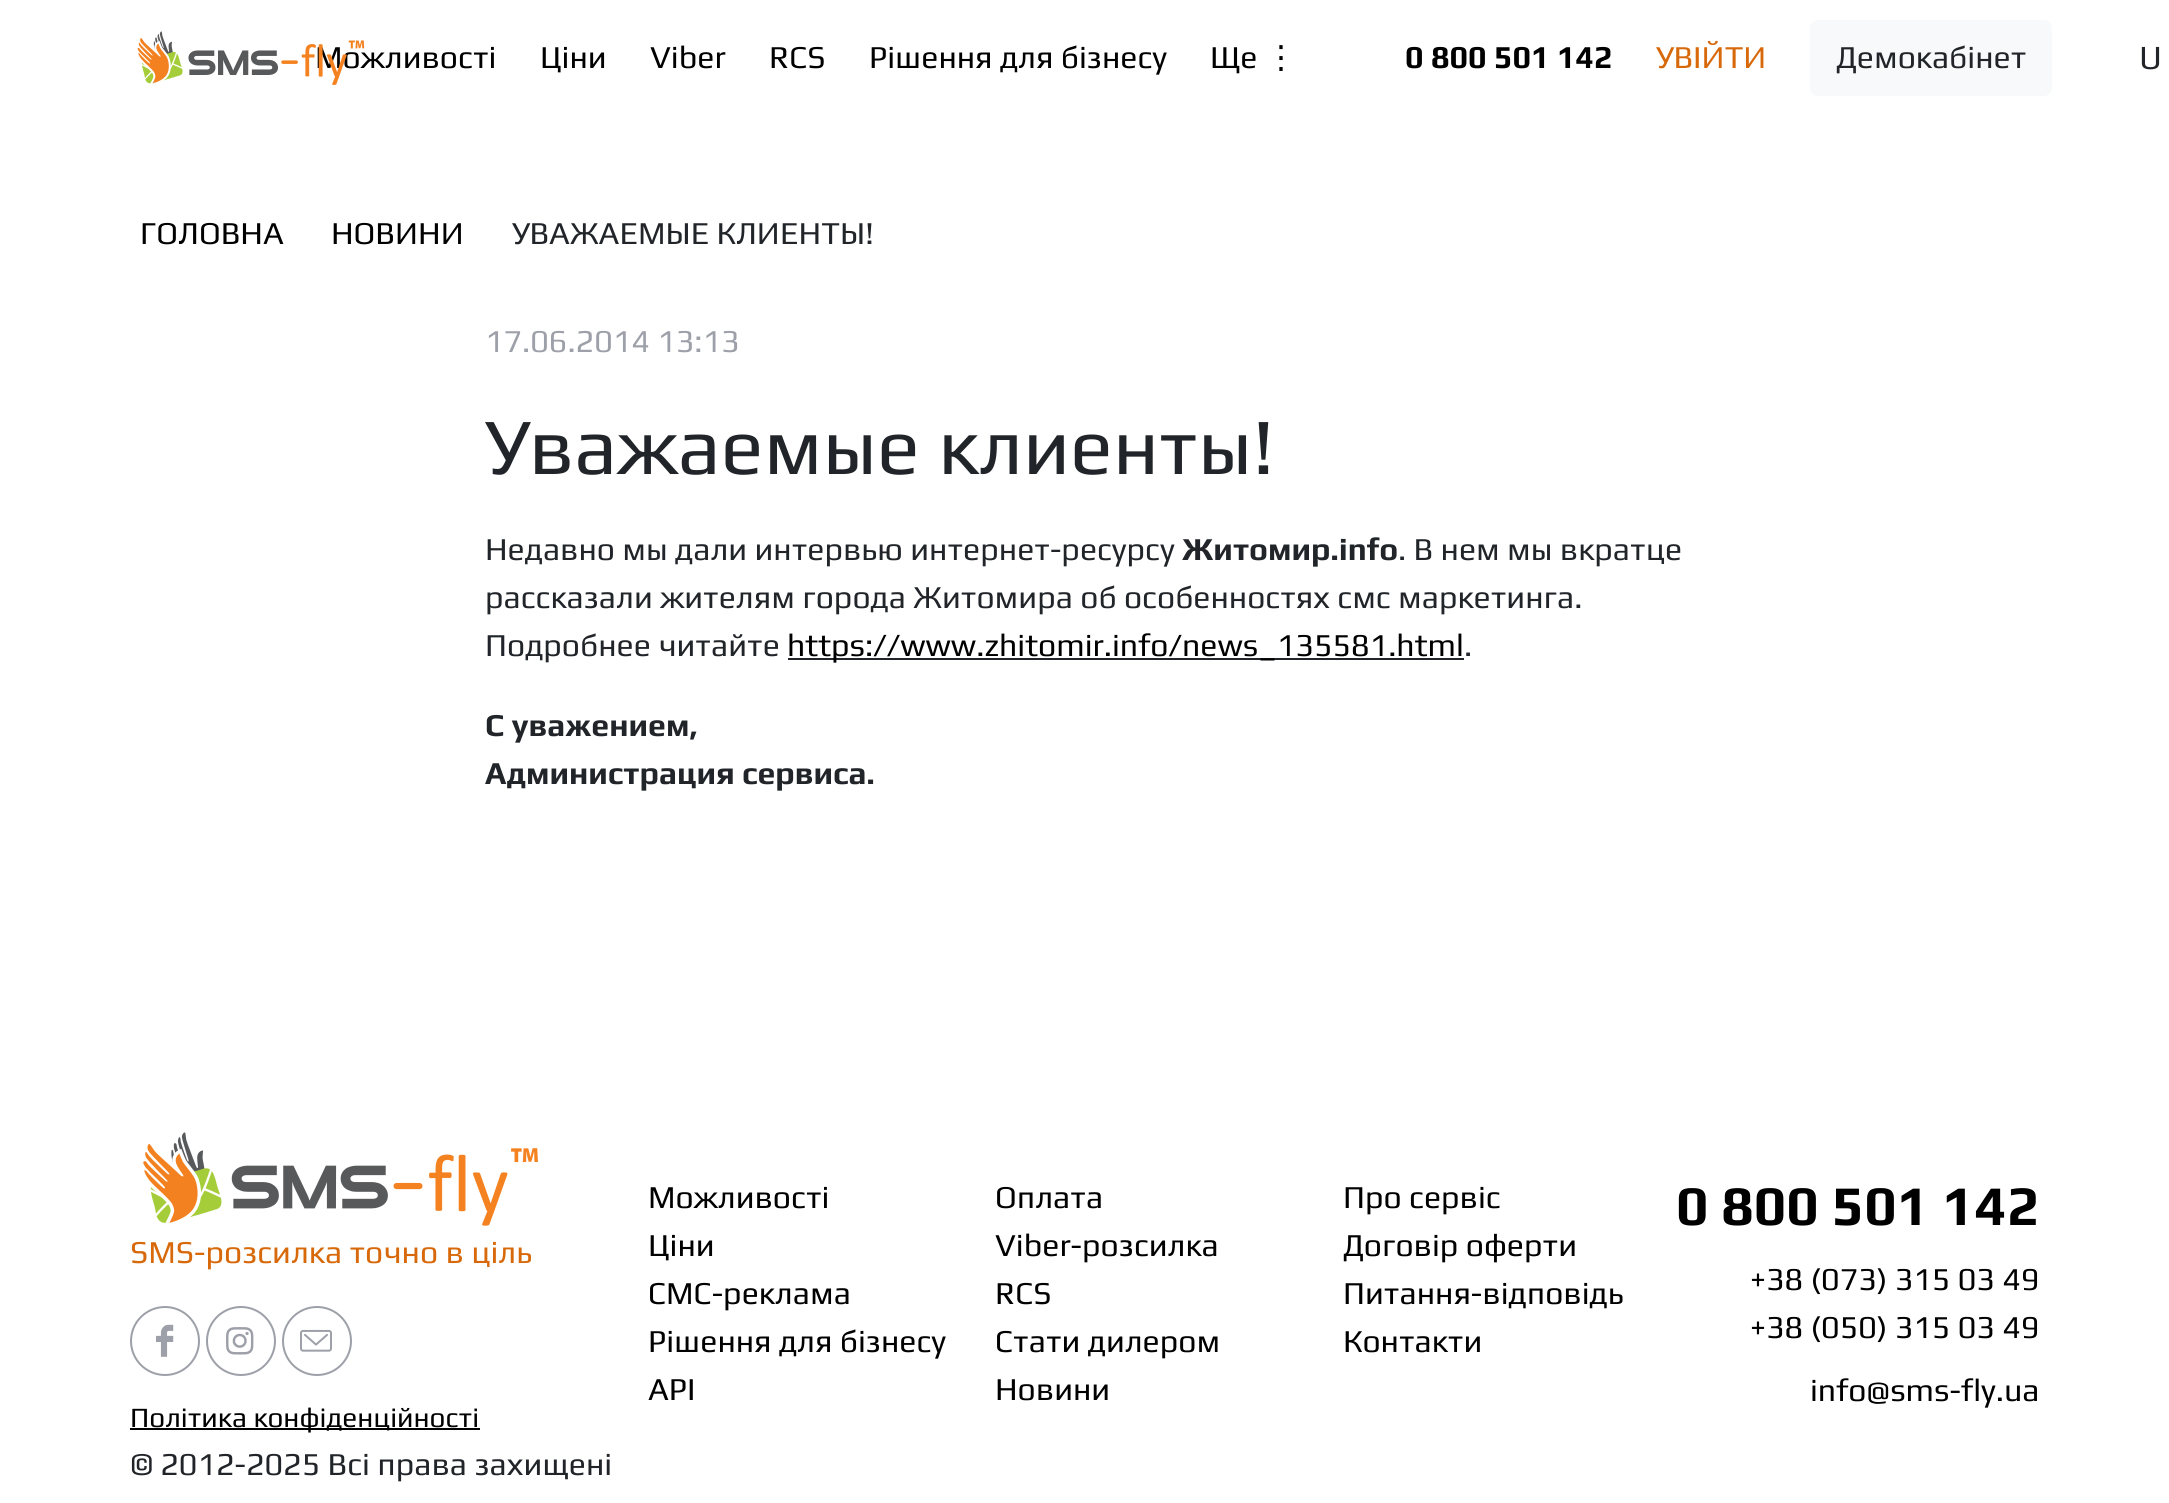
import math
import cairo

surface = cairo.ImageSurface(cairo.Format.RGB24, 2169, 1503)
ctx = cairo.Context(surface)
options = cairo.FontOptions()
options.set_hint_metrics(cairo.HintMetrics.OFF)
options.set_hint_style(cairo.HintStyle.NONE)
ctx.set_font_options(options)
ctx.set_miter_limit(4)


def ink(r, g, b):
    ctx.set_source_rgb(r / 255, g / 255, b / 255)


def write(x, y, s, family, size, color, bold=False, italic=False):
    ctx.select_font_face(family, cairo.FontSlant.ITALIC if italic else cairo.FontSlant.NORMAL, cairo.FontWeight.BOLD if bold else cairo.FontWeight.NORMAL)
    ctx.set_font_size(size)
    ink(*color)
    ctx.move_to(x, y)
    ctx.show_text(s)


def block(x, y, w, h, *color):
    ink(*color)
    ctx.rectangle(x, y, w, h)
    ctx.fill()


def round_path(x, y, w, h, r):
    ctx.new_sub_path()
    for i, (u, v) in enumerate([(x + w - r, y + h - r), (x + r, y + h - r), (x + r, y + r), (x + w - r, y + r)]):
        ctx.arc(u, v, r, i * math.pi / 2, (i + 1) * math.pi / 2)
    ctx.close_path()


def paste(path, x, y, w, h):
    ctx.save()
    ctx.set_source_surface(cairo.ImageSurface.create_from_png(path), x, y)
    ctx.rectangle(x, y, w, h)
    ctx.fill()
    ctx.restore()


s1 = dict(family="Play", size=32, color=(0, 0, 0))
s2 = dict(family="DejaVu Sans", size=32, color=(0, 0, 0))
s3 = dict(family="Play", size=32, color=(0, 0, 0), bold=True)
s4 = dict(family="Play", size=32, color=(216, 105, 10))
s5 = dict(family="Play", size=32, color=(33, 37, 41))
s6 = dict(family="Play", size=34, color=(33, 37, 41))
s7 = dict(family="Play", size=32, color=(157, 160, 168))
s8 = dict(family="Play", size=80, color=(33, 37, 41))
s9 = dict(family="Play", size=32, color=(33, 37, 41), bold=True)
s10 = dict(family="Play", size=28, color=(0, 0, 0))
s11 = dict(family="Play", size=56, color=(0, 0, 0), bold=True)

ink(255, 255, 255)
ctx.paint()
write(315, 68, "Можливості", **s1)
paste("pic1.png", 137, 31, 228, 54)
write(540, 68, "Ціни", **s1)
write(650, 68, "Viber", **s1)
write(769, 68, "RCS", **s1)
write(869, 68, "Рішення для бізнесу", **s1)
write(1210, 68, "Ще", **s1)
write(1265, 68, "⋮", **s2)
write(1405, 68, "0 800 501 142", **s3)
write(1656, 68, "УВІЙТИ", **s4)
ink(248, 249, 250)
round_path(1810, 20, 242, 76, 8)
ctx.fill()
write(1836, 68, "Демокабінет", **s5)
write(2139, 69, "U", **s6)
write(140, 244, "ГОЛОВНА", **s1)
write(331, 244, "НОВИНИ", **s1)
write(512, 244, "УВАЖАЕМЫЕ КЛИЕНТЫ!", **s5)
write(485, 352, "17.06.2014 13:13", **s7)
write(485, 474, "Уважаемые клиенты!", **s8)
write(485, 560, "Недавно мы дали интервью интернет-ресурсу", **s5)
write(1182, 560, "Житомир.info", **s9)
write(1398, 560, ". В нем мы вкратце", **s5)
write(485, 608, "рассказали жителям города Житомира об особенностях смс маркетинга.", **s5)
write(485, 656, "Подробнее читайте", **s5)
block(788, 658, 676, 2, 33, 37, 41)
write(787, 656, "https://www.zhitomir.info/news_135581.html", **s1)
write(1464, 656, ".", **s5)
write(485, 736, "С уважением,", **s9)
write(485, 784, "Администрация сервиса.", **s9)
paste("pic2.png", 143, 1132, 395, 94)
write(130, 1263, "SMS-розсилка точно в ціль", **s4)
ctx.new_path()
ctx.arc(165, 1341, 34, 0, 2 * math.pi)
ink(157, 160, 168)
ctx.stroke()
paste("pic3.png", 156, 1324, 18, 33)
ctx.arc(241, 1341, 34, 0, 2 * math.pi)
ctx.stroke()
paste("pic4.png", 226, 1327, 28, 28)
ctx.arc(317, 1341, 34, 0, 2 * math.pi)
ctx.stroke()
paste("pic5.png", 300, 1329, 32, 23)
block(130, 1428, 350, 2, 0, 0, 0)
write(130, 1427, "Політика конфіденційності", **s10)
write(130, 1475, "© 2012-2025 Всі права захищені", **s5)
write(648, 1208, "Можливості", **s1)
write(995, 1208, "Оплата", **s1)
write(1343, 1208, "Про сервіс", **s1)
write(648, 1256, "Ціни", **s1)
write(995, 1256, "Viber-розсилка", **s1)
write(1343, 1256, "Договір оферти", **s1)
write(648, 1304, "СМС-реклама", **s1)
write(995, 1304, "RCS", **s1)
write(1343, 1304, "Питання-відповідь", **s1)
write(648, 1352, "Рішення для бізнесу", **s1)
write(995, 1352, "Стати дилером", **s1)
write(1343, 1352, "Контакти", **s1)
write(648, 1400, "API", **s1)
write(995, 1400, "Новини", **s1)
write(1676, 1225, "0 800 501 142", **s11)
write(1750, 1290, "+38 (073) 315 03 49", **s1)
write(1750, 1338, "+38 (050) 315 03 49", **s1)
write(1810, 1401, "info@sms-fly.ua", **s1)
surface.write_to_png("screenshot.png")
